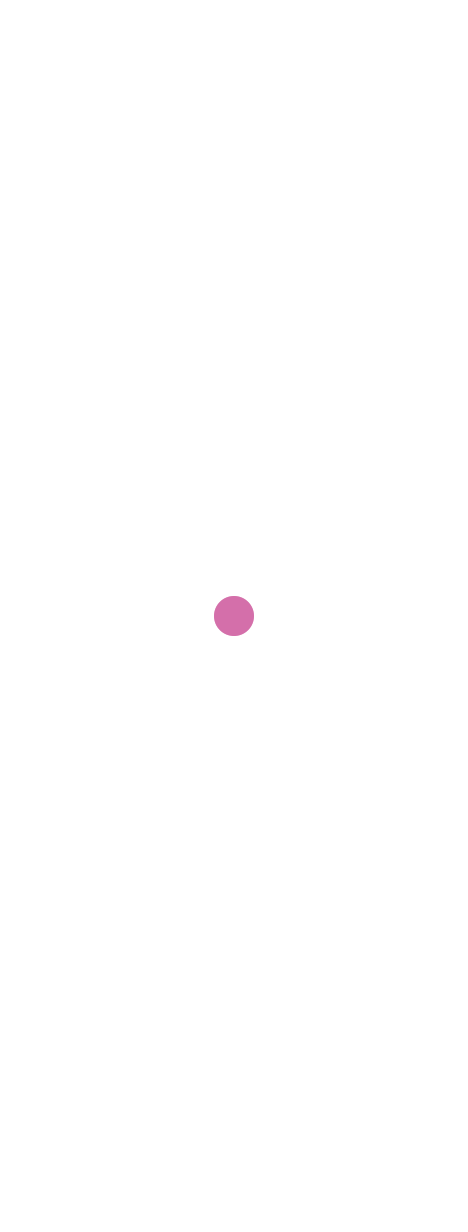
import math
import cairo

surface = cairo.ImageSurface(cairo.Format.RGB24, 468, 1232)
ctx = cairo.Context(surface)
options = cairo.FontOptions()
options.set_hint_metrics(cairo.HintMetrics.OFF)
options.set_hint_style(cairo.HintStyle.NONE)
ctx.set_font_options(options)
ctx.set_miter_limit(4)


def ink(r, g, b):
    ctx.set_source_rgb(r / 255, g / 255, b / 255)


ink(255, 255, 255)
ctx.paint()
ink(224, 152, 194)
ctx.arc(234, 616, 20, 0, 2 * math.pi)
ctx.fill()
ctx.set_source_rgba(0.796, 0.329, 0.6, 0.6)
ctx.arc(234, 616, 20, 0, 2 * math.pi)
ctx.fill()
surface.write_to_png("screenshot.png")
